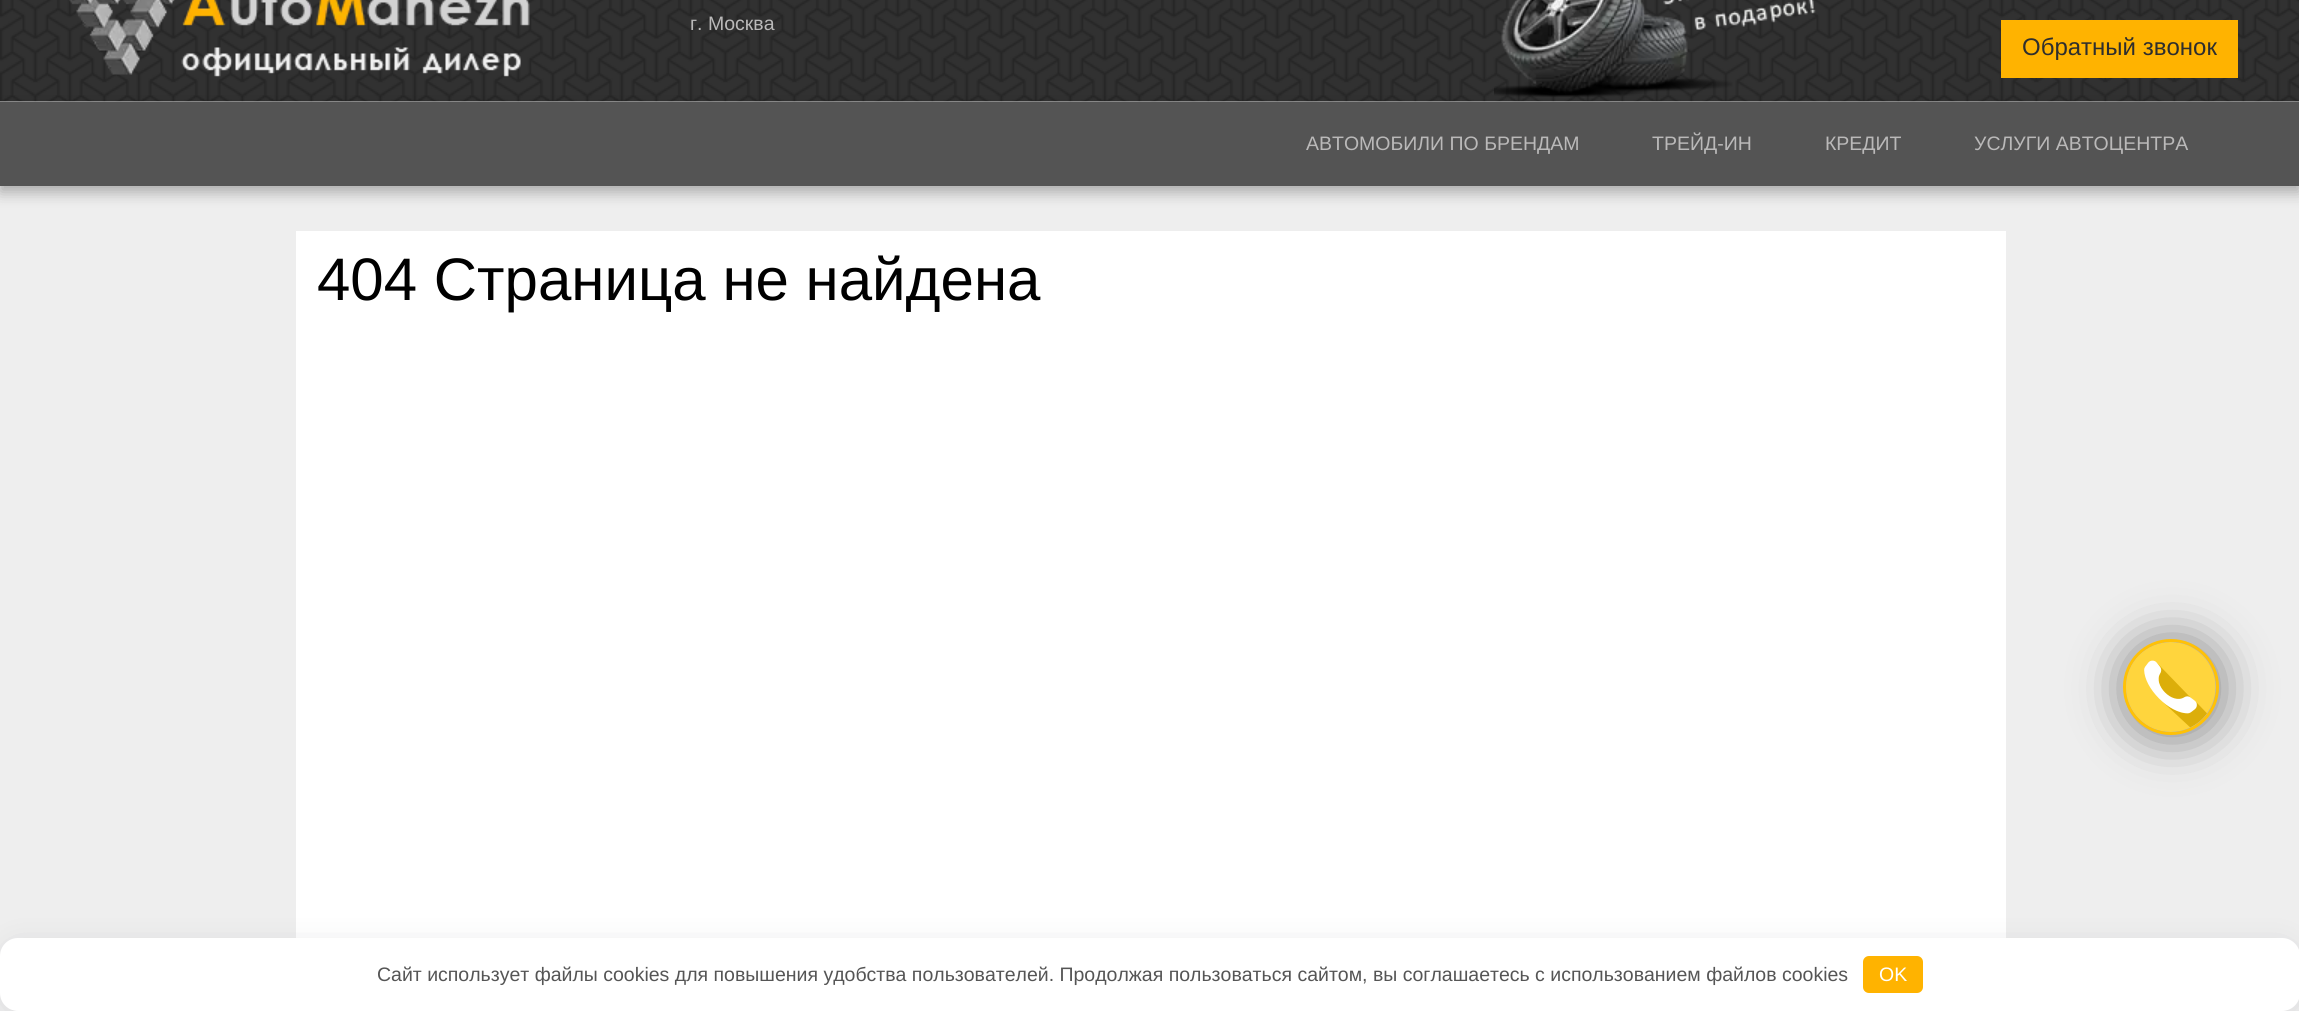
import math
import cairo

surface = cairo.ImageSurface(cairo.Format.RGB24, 2299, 1011)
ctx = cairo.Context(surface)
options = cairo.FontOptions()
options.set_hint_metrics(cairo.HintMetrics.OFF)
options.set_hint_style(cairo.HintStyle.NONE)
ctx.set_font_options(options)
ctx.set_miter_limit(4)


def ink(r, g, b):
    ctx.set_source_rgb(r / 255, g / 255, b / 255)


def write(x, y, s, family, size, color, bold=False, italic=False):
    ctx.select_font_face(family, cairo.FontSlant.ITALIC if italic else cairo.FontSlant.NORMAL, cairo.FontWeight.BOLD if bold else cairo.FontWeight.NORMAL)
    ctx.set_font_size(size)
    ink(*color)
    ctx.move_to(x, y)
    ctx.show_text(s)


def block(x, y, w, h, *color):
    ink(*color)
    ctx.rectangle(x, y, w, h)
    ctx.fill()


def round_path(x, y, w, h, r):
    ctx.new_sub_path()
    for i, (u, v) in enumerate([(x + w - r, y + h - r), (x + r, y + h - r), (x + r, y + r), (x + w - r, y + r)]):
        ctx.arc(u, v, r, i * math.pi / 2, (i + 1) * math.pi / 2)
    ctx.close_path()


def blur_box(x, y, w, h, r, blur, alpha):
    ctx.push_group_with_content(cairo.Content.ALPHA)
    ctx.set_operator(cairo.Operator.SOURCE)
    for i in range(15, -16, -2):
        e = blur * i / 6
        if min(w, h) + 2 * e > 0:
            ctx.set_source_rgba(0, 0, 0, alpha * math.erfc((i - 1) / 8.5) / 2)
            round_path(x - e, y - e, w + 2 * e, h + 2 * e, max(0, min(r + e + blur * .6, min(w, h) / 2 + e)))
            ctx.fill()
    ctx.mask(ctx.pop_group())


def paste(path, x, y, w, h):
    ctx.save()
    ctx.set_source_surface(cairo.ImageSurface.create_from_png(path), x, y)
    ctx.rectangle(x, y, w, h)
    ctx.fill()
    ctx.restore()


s1 = dict(family="Liberation Sans", size=19.5, color=(186, 185, 185))
s2 = dict(family="Liberation Sans", size=24, color=(46, 46, 46))
s3 = dict(family="Liberation Sans", size=60, color=(0, 0, 0))
s4 = dict(family="Liberation Sans", size=19.5, color=(85, 85, 85))
s5 = dict(family="Liberation Sans", size=19.5, color=(255, 255, 255))

ink(238, 238, 238)
ctx.paint()
paste("pic1.png", 0, 0, 2299, 102)
paste("pic2.png", 69, 0, 461, 77)
write(690, 30, "г. Москва", **s1)
paste("pic3.png", 1494, 0, 322, 97)
block(2001, 20, 237, 58, 255, 179, 0)
write(2022, 55, "Обратный звонок", **s2)
ink(0, 0, 0)
blur_box(0, 108, 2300, 84, 0, 7.5, 0.3)
block(0, 102, 2299, 84, 84, 84, 84)
write(1306, 150, "АВТОМОБИЛИ ПО БРЕНДАМ", **s1)
write(1652, 150, "ТРЕЙД-ИН", **s1)
write(1825, 150, "КРЕДИТ", **s1)
write(1974, 150, "УСЛУГИ АВТОЦЕНТРА", **s1)
block(296, 231, 1710, 707, 255, 255, 255)
write(317, 300, "404 Страница не найдена", **s3)
ink(143, 143, 143)
blur_box(2120, 636, 105, 105, 52.5, 22.5, 1)
ctx.arc(2171, 687, 46.5, 0, 2 * math.pi)
ink(255, 193, 7)
ctx.set_line_width(3)
ctx.stroke()
paste("pic4.png", 2126, 642, 90, 90)
ink(41, 44, 56)
blur_box(8, 950, 2284, 58, 11, 15, 0.2)
ink(255, 255, 255)
round_path(0, 938, 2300, 73, 18)
ctx.fill()
write(377, 981, "Сайт использует файлы cookies для повышения удобства пользователей. Продолжая пользоваться сайтом, вы соглашаетесь с использованием файлов cookies", **s4)
ink(255, 179, 0)
round_path(1863, 956, 60, 37, 6)
ctx.fill()
write(1879, 981, "OK", **s5)
surface.write_to_png("screenshot.png")
